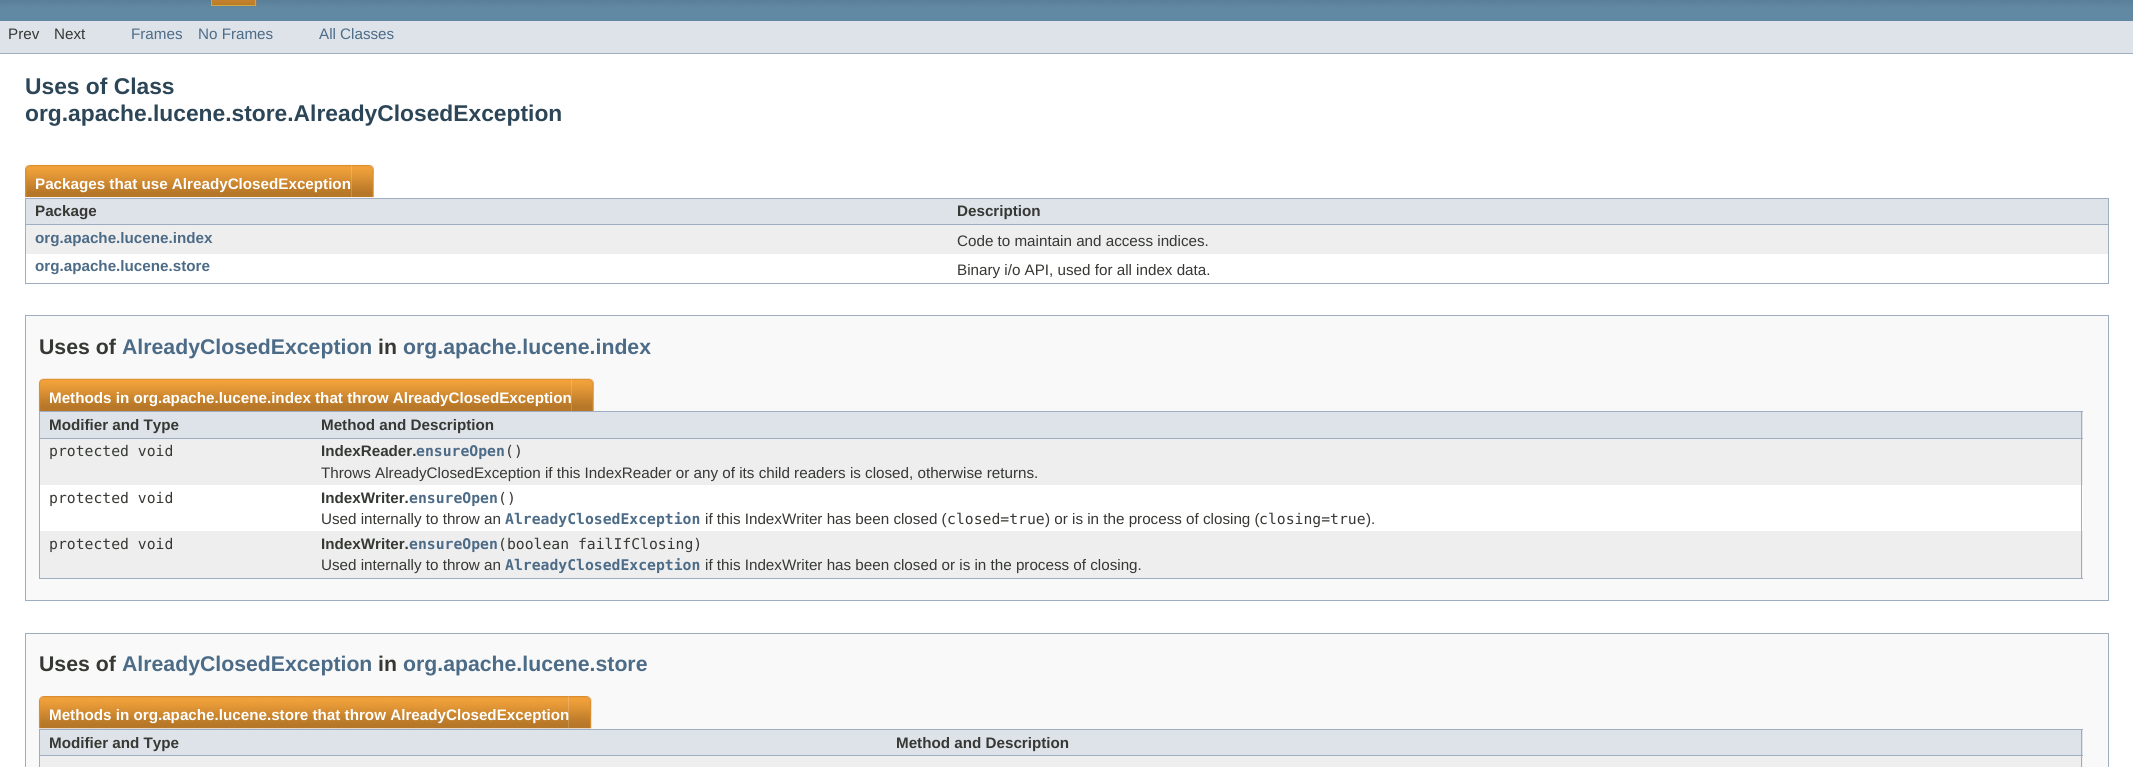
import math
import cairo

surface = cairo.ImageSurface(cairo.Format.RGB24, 2133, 767)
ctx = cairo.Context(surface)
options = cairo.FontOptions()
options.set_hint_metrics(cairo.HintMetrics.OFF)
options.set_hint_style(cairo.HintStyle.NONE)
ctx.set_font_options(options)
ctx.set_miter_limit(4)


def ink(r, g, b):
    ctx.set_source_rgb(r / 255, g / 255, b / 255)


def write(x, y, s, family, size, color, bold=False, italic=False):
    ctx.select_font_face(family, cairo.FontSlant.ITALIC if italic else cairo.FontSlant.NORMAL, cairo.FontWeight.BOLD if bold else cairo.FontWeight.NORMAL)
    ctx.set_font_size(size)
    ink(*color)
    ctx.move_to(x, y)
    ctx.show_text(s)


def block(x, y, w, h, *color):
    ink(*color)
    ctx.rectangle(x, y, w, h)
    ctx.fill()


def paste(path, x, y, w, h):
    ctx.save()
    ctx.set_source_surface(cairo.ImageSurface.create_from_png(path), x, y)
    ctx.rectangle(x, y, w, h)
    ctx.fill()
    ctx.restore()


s1 = dict(family="Liberation Sans", size=15.2, color=(53, 56, 51))
s2 = dict(family="Liberation Sans", size=15.2, color=(76, 107, 135))
s3 = dict(family="Liberation Sans", size=22.8, color=(44, 69, 87), bold=True)
s4 = dict(family="Liberation Sans", size=15.2, color=(255, 255, 255), bold=True)
s5 = dict(family="Liberation Sans", size=15.2, color=(53, 56, 51), bold=True)
s6 = dict(family="Liberation Sans", size=15.2, color=(76, 107, 135), bold=True)
s7 = dict(family="Liberation Sans", size=21.25, color=(53, 56, 51), bold=True)
s8 = dict(family="Liberation Sans", size=21.25, color=(76, 107, 135), bold=True)
s9 = dict(family="DejaVu Sans Mono", size=14.75, color=(53, 56, 51))
s10 = dict(family="DejaVu Sans Mono", size=14.75, color=(76, 107, 135), bold=True)

ink(255, 255, 255)
ctx.paint()
paste("pic1.png", 0, 0, 2133, 21)
paste("pic2.png", 212, 0, 45, 6)
ctx.rectangle(211.5, -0.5, 44, 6)
ink(201, 170, 68)
ctx.set_line_width(1)
ctx.stroke()
block(0, 21, 2133, 32, 222, 227, 233)
block(0, 53, 2133, 1, 158, 173, 192)
write(8, 39, "Prev", **s1)
write(54, 39, "Next", **s1)
write(131, 39, "Frames", **s2)
write(198, 39, "No Frames", **s2)
write(319, 39, "All Classes", **s2)
write(25, 94, "Uses of Class", **s3)
write(25, 121, "org.apache.lucene.store.AlreadyClosedException", **s3)
block(25, 283, 2084, 1, 158, 173, 192)
paste("pic3.png", 25, 164, 327, 34)
write(35, 189, "Packages that use AlreadyClosedException", **s4)
paste("pic4.png", 351, 164, 23, 34)
block(26, 199, 2082, 25, 222, 227, 233)
block(25, 198, 2084, 1, 158, 173, 192)
block(25, 224, 923, 1, 158, 173, 192)
block(25, 198, 1, 85, 158, 173, 192)
write(35, 216, "Package", **s5)
block(2108, 198, 1, 85, 158, 173, 192)
block(948, 224, 1161, 1, 158, 173, 192)
write(957, 216, "Description", **s5)
block(26, 225, 2082, 29, 238, 238, 239)
write(35, 243, "org.apache.lucene.index", **s6)
write(957, 246, "Code to maintain and access indices.", **s1)
write(35, 271, "org.apache.lucene.store", **s6)
write(957, 275, "Binary i/o API, used for all index data.", **s1)
ink(249, 249, 249)
ctx.rectangle(25.5, 315.5, 2083, 285)
ctx.fill_preserve()
ink(158, 173, 192)
ctx.stroke()
write(39, 354, "Uses of", **s7)
write(122, 354, "AlreadyClosedException", **s8)
write(378, 354, "in", **s7)
write(403, 354, "org.apache.lucene.index", **s8)
block(39, 578, 2044, 1, 158, 173, 192)
paste("pic5.png", 38, 378, 534, 33)
write(49, 403, "Methods in org.apache.lucene.index that throw AlreadyClosedException", **s4)
paste("pic6.png", 571, 378, 23, 33)
block(40, 412, 2043, 26, 222, 227, 233)
block(39, 411, 2044, 1, 158, 173, 192)
block(39, 438, 274, 1, 158, 173, 192)
block(39, 411, 1, 167, 158, 173, 192)
write(49, 430, "Modifier and Type", **s5)
block(2081, 411, 1, 28, 158, 173, 192)
block(313, 438, 1770, 1, 158, 173, 192)
write(321, 430, "Method and Description", **s5)
block(40, 439, 2043, 46, 238, 238, 239)
write(49, 456, "protected void", **s9)
block(2081, 439, 1, 46, 158, 173, 192)
write(321, 456, "IndexReader.", **s5)
write(416, 456, "ensureOpen", **s10)
write(505, 456, "()", **s9)
write(321, 478, "Throws AlreadyClosedException if this IndexReader or any of its child readers is closed, otherwise returns.", **s1)
block(40, 485, 2043, 46, 255, 255, 255)
write(49, 503, "protected void", **s9)
block(2081, 485, 1, 46, 158, 173, 192)
write(321, 503, "IndexWriter.", **s5)
write(409, 503, "ensureOpen", **s10)
write(498, 503, "()", **s9)
write(321, 524, "Used internally to throw an", **s1)
write(505, 524, "AlreadyClosedException", **s10)
write(705, 524, "if this IndexWriter has been closed (", **s1)
write(947, 524, "closed=true", **s9)
write(1045, 524, ") or is in the process of closing (", **s1)
write(1259, 524, "closing=true", **s9)
write(1366, 524, ").", **s1)
block(40, 531, 2043, 47, 238, 238, 239)
write(49, 549, "protected void", **s9)
block(2081, 531, 1, 47, 158, 173, 192)
write(321, 549, "IndexWriter.", **s5)
write(409, 549, "ensureOpen", **s10)
write(498, 549, "(boolean failIfClosing)", **s9)
write(321, 570, "Used internally to throw an", **s1)
write(505, 570, "AlreadyClosedException", **s10)
write(705, 570, "if this IndexWriter has been closed or is in the process of closing.", **s1)
ink(249, 249, 249)
ctx.rectangle(25.5, 633.5, 2083, 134)
ctx.fill_preserve()
ink(158, 173, 192)
ctx.stroke()
write(39, 671, "Uses of", **s7)
write(122, 671, "AlreadyClosedException", **s8)
write(378, 671, "in", **s7)
write(403, 671, "org.apache.lucene.store", **s8)
paste("pic7.png", 38, 696, 531, 33)
write(49, 720, "Methods in org.apache.lucene.store that throw AlreadyClosedException", **s4)
paste("pic8.png", 568, 696, 24, 33)
block(40, 730, 2043, 25, 222, 227, 233)
block(39, 729, 2044, 1, 158, 173, 192)
block(39, 755, 849, 1, 158, 173, 192)
block(39, 729, 1, 38, 158, 173, 192)
write(49, 748, "Modifier and Type", **s5)
block(2081, 729, 1, 27, 158, 173, 192)
block(888, 755, 1195, 1, 158, 173, 192)
write(896, 748, "Method and Description", **s5)
block(40, 756, 2043, 11, 238, 238, 239)
block(2081, 756, 1, 11, 158, 173, 192)
surface.write_to_png("screenshot.png")
